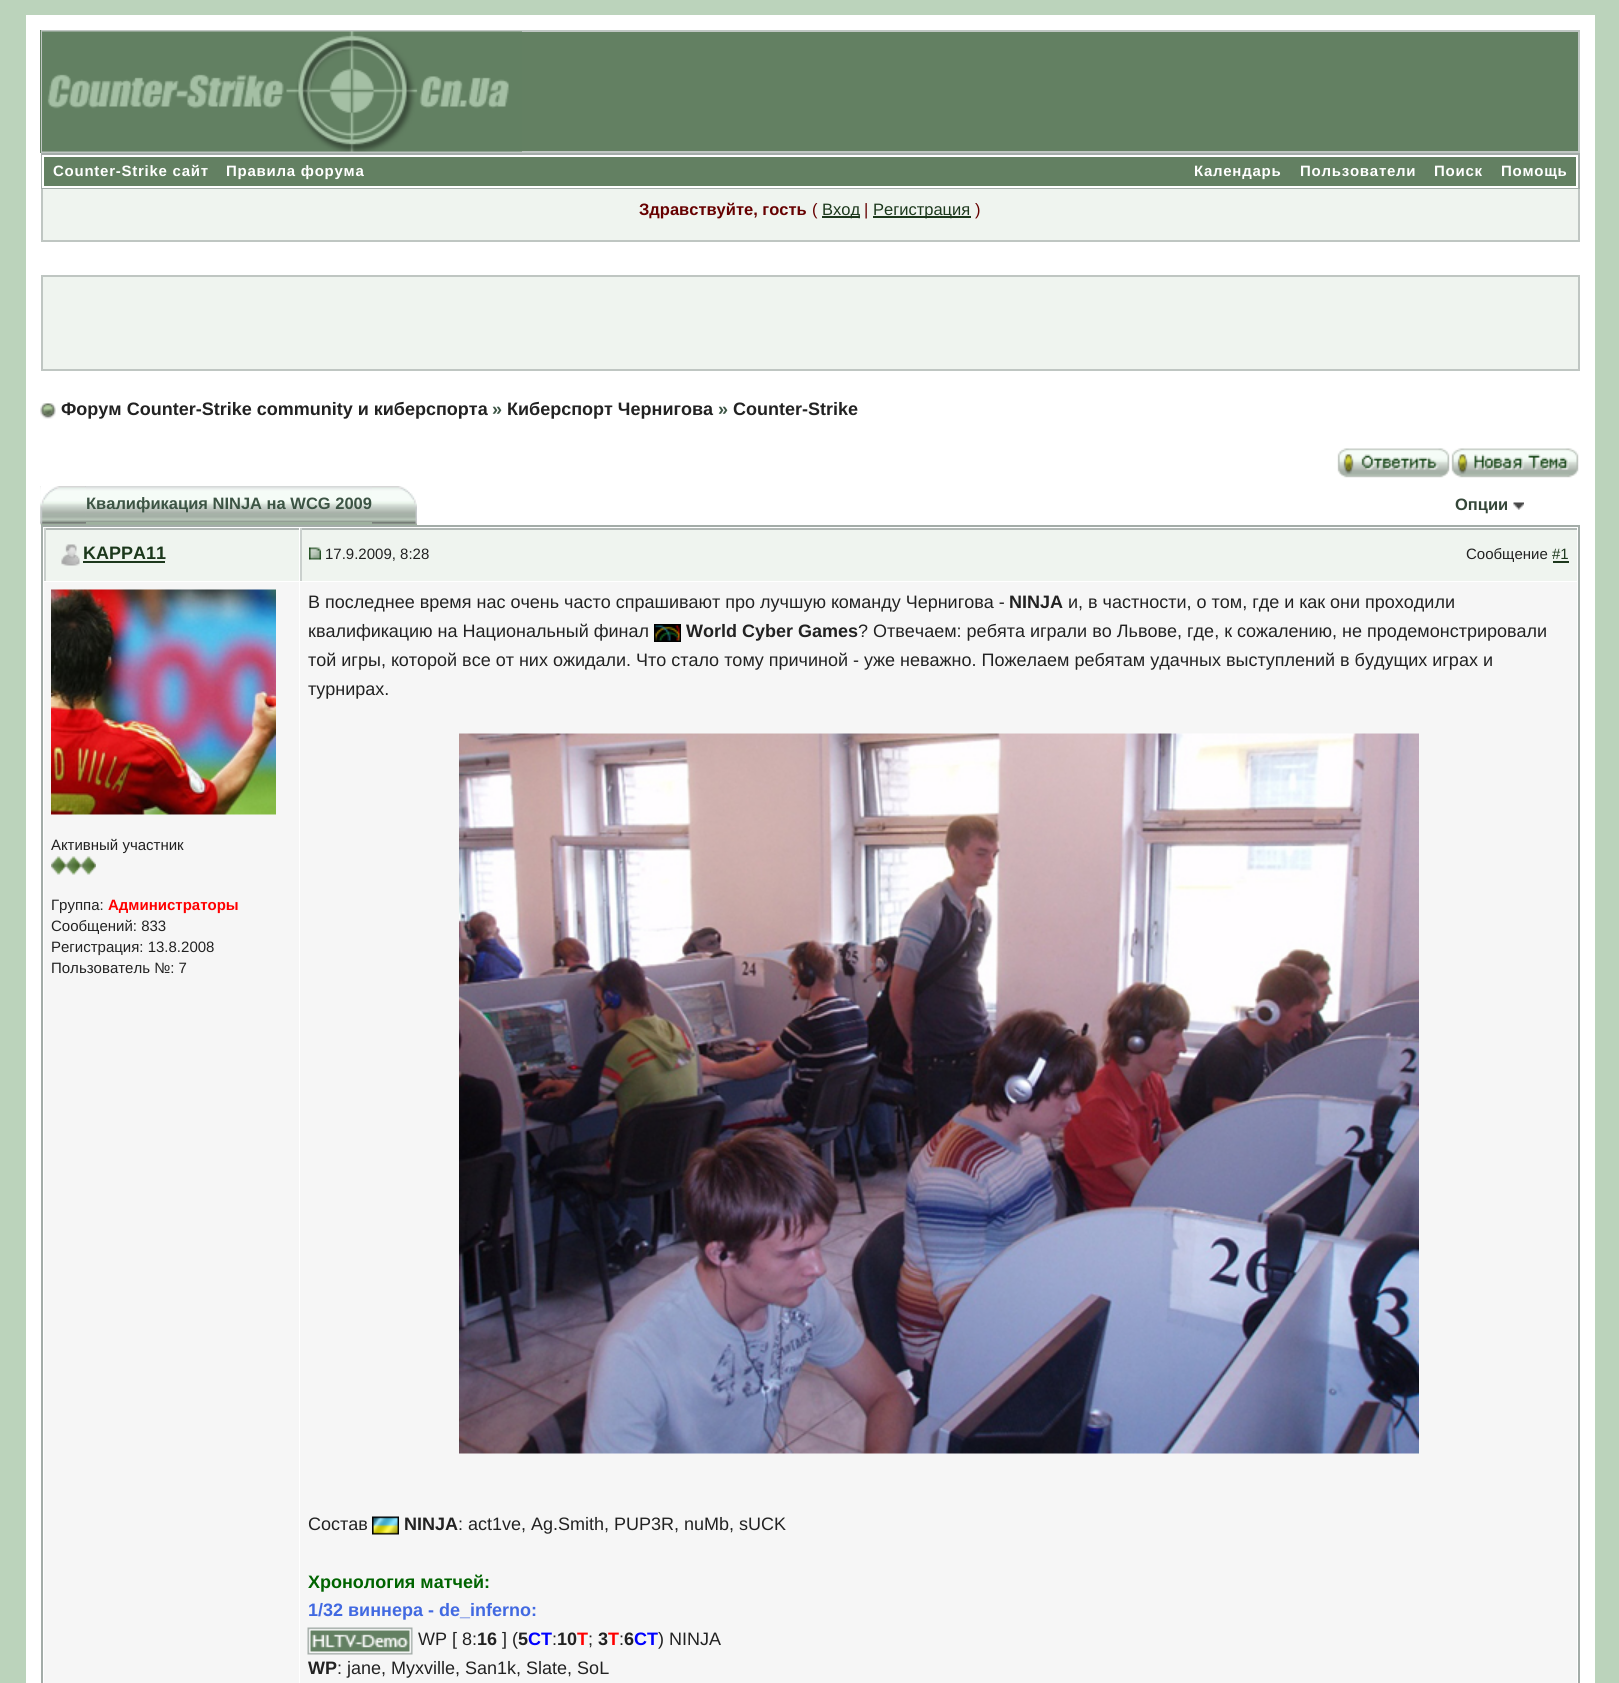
import math
import cairo

surface = cairo.ImageSurface(cairo.Format.RGB24, 1619, 1683)
ctx = cairo.Context(surface)
options = cairo.FontOptions()
options.set_hint_metrics(cairo.HintMetrics.OFF)
options.set_hint_style(cairo.HintStyle.NONE)
ctx.set_font_options(options)
ctx.set_miter_limit(4)


def ink(r, g, b):
    ctx.set_source_rgb(r / 255, g / 255, b / 255)


def write(x, y, s, family, size, color, bold=False, italic=False):
    ctx.select_font_face(family, cairo.FontSlant.ITALIC if italic else cairo.FontSlant.NORMAL, cairo.FontWeight.BOLD if bold else cairo.FontWeight.NORMAL)
    ctx.set_font_size(size)
    ink(*color)
    ctx.move_to(x, y)
    ctx.show_text(s)


def write_spaced(x, y, s, letter, word):
    ctx.move_to(x, y)
    for ch in s:
        ctx.show_text(ch)
        ctx.rel_move_to(letter + word * (ch == ' '), 0)


def block(x, y, w, h, *color):
    ink(*color)
    ctx.rectangle(x, y, w, h)
    ctx.fill()


def paste(path, x, y, w, h):
    ctx.save()
    ctx.set_source_surface(cairo.ImageSurface.create_from_png(path), x, y)
    ctx.rectangle(x, y, w, h)
    ctx.fill()
    ctx.restore()


s1 = dict(family="Liberation Sans", size=16.5, color=(102, 0, 0), bold=True)
s2 = dict(family="Liberation Sans", size=16.5, color=(102, 0, 0))
s3 = dict(family="Liberation Sans", size=16.5, color=(28, 56, 28))
s4 = dict(family="Liberation Sans", size=18, color=(34, 34, 34), bold=True)
s5 = dict(family="Liberation Sans", size=18, color=(60, 84, 68), bold=True)
s6 = dict(family="Liberation Sans", size=16.5, color=(60, 84, 68), bold=True)
s7 = dict(family="Liberation Sans", size=16.5, color=(53, 71, 57), bold=True)
s8 = dict(family="Liberation Sans", size=18, color=(28, 56, 28), bold=True)
s9 = dict(family="Liberation Sans", size=15, color=(34, 34, 34))
s10 = dict(family="Liberation Sans", size=15, color=(28, 56, 28))
s11 = dict(family="Liberation Sans", size=15, color=(255, 0, 0), bold=True)
s12 = dict(family="Liberation Sans", size=18, color=(34, 34, 34))
s13 = dict(family="Liberation Sans", size=18, color=(0, 100, 0), bold=True)
s14 = dict(family="Liberation Sans", size=18, color=(65, 105, 225), bold=True)
s15 = dict(family="Liberation Sans", size=18, color=(0, 0, 255), bold=True)
s16 = dict(family="Liberation Sans", size=18, color=(255, 0, 0), bold=True)

ink(187, 211, 187)
ctx.paint()
block(26, 15, 1569, 1668, 255, 255, 255)
block(40, 30, 1538, 123, 99, 128, 98)
ctx.rectangle(42, 31, 1537, 121)
ink(191, 198, 194)
ctx.stroke()
paste("pic1.png", 42, 31, 480, 121)
ctx.rectangle(42, 154, 1537, 34)
ink(163, 172, 168)
ctx.stroke()
ink(99, 128, 98)
ctx.rectangle(43, 156, 1534, 31)
ctx.fill_preserve()
ink(255, 255, 255)
ctx.stroke()
ctx.select_font_face("Liberation Sans", cairo.FontSlant.NORMAL, cairo.FontWeight.BOLD)
ctx.set_font_size(15)
write_spaced(53, 176, "Counter-Strike сайт", 0.75, 0)
write_spaced(226, 176, "Правила форума", 0.75, 0)
write_spaced(1194, 176, "Календарь", 0.75, 0)
write_spaced(1300, 176, "Пользователи", 0.75, 0)
write_spaced(1434, 176, "Поиск", 0.75, 0)
write_spaced(1501, 176, "Помощь", 0.75, 0)
block(43, 189, 1535, 51, 239, 244, 239)
block(1578, 189, 2, 53, 191, 198, 194)
block(41, 240, 1539, 2, 191, 198, 194)
block(41, 189, 2, 53, 191, 198, 194)
write(639, 215, "Здравствуйте, гость", **s1)
write(812, 215, "(", **s2)
block(822, 216, 38, 2, 28, 56, 28)
write(822, 215, "Вход", **s3)
write(864, 215, "|", **s2)
block(873, 216, 98, 2, 28, 56, 28)
write(873, 215, "Регистрация", **s3)
write(975, 215, ")", **s2)
ink(239, 244, 239)
ctx.rectangle(42, 276, 1537, 94)
ctx.fill_preserve()
ink(191, 198, 194)
ctx.stroke()
paste("pic2.png", 40, 403, 16, 16)
write(61, 415, "Форум Counter-Strike community и киберспорта", **s4)
write(492, 415, "»", **s5)
write(507, 415, "Киберспорт Чернигова", **s4)
write(718, 415, "»", **s5)
write(733, 415, "Counter-Strike", **s4)
paste("pic3.png", 1337, 448, 113, 30)
paste("pic4.png", 1451, 448, 128, 30)
paste("pic5.png", 40, 486, 377, 39)
block(41, 524, 376, 1, 159, 177, 159)
paste("pic7.png", 85, 486, 287, 38)
paste("pic6.png", 40, 486, 46, 38)
block(86, 522, 286, 2, 159, 177, 159)
write(86, 509, "Квалификация NINJA на WCG 2009", **s6)
paste("pic8.png", 372, 486, 45, 38)
write(1455, 510, "Опции", **s7)
paste("pic9.png", 1513, 502, 11, 8)
ctx.rectangle(42, 526, 1537, 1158)
ink(163, 172, 168)
ctx.stroke()
block(46, 530, 253, 51, 239, 244, 239)
block(44, 528, 255, 2, 177, 184, 181)
block(44, 528, 2, 53, 202, 208, 205)
paste("pic10.png", 61, 544, 19, 22)
write(83, 559, "KAPPA11", **s8)
block(83, 561, 82, 2, 28, 56, 28)
block(302, 530, 1275, 51, 239, 244, 239)
block(300, 528, 1277, 2, 177, 184, 181)
block(300, 528, 2, 53, 202, 208, 205)
paste("pic11.png", 309, 547, 12, 13)
write(325, 559, "17.9.2009, 8:28", **s9)
write(1466, 559, "Сообщение", **s9)
write(1552, 559, "#1", **s10)
block(1553, 561, 16, 2, 28, 56, 28)
block(44, 582, 255, 1101, 246, 246, 246)
paste("pic12.png", 51, 589, 225, 226)
write(51, 850, "Активный участник", **s9)
paste("pic13.png", 51, 856, 15, 19)
paste("pic13.png", 66, 856, 15, 19)
paste("pic13.png", 81, 856, 15, 19)
write(51, 910, "Группа:", **s9)
write(108, 910, "Администраторы", **s11)
write(51, 931, "Сообщений: 833", **s9)
write(51, 952, "Регистрация: 13.8.2008", **s9)
write(51, 973, "Пользователь №: 7", **s9)
block(300, 582, 1277, 1101, 246, 246, 246)
write(308, 608, "В последнее время нас очень часто спрашивают про лучшую команду Чернигова -", **s12)
write(1009, 608, "NINJA", **s4)
write(1068, 608, "и, в частности, о том, где и как они проходили", **s12)
write(308, 637, "квалификацию на Национальный финал", **s12)
paste("pic14.png", 654, 624, 27, 18)
write(686, 637, "World Cyber Games", **s4)
write(858, 637, "? Отвечаем: ребята играли во Львове, где, к сожалению, не продемонстрировали", **s12)
write(308, 666, "той игры, которой все от них ожидали. Что стало тому причиной - уже неважно. Пожелаем ребятам удачных выступлений в будущих играх и", **s12)
write(308, 695, "турнирах.", **s12)
paste("pic15.png", 459, 733, 960, 721)
write(308, 1530, "Состав", **s12)
paste("pic16.png", 372, 1516, 27, 19)
write(404, 1530, "NINJA", **s4)
write(458, 1530, ": act1ve, Ag.Smith, PUP3R, nuMb, sUCK", **s12)
write(308, 1588, "Хронология матчей:", **s13)
write(308, 1616, "1/32 виннера - de_inferno:", **s14)
paste("pic17.png", 307, 1627, 106, 28)
write(418, 1645, "WP [ 8:", **s12)
write(477, 1645, "16", **s4)
write(502, 1645, "] (", **s12)
write(518, 1645, "5", **s4)
write(528, 1645, "CT", **s15)
write(552, 1645, ":", **s12)
write(557, 1645, "10", **s4)
write(577, 1645, "T", **s16)
write(588, 1645, ";", **s12)
write(598, 1645, "3", **s4)
write(608, 1645, "T", **s16)
write(619, 1645, ":", **s12)
write(624, 1645, "6", **s4)
write(634, 1645, "CT", **s15)
write(658, 1645, ") NINJA", **s12)
write(308, 1674, "WP", **s4)
write(337, 1674, ": jane, Myxville, San1k, Slate, SoL", **s12)
surface.write_to_png("screenshot.png")
